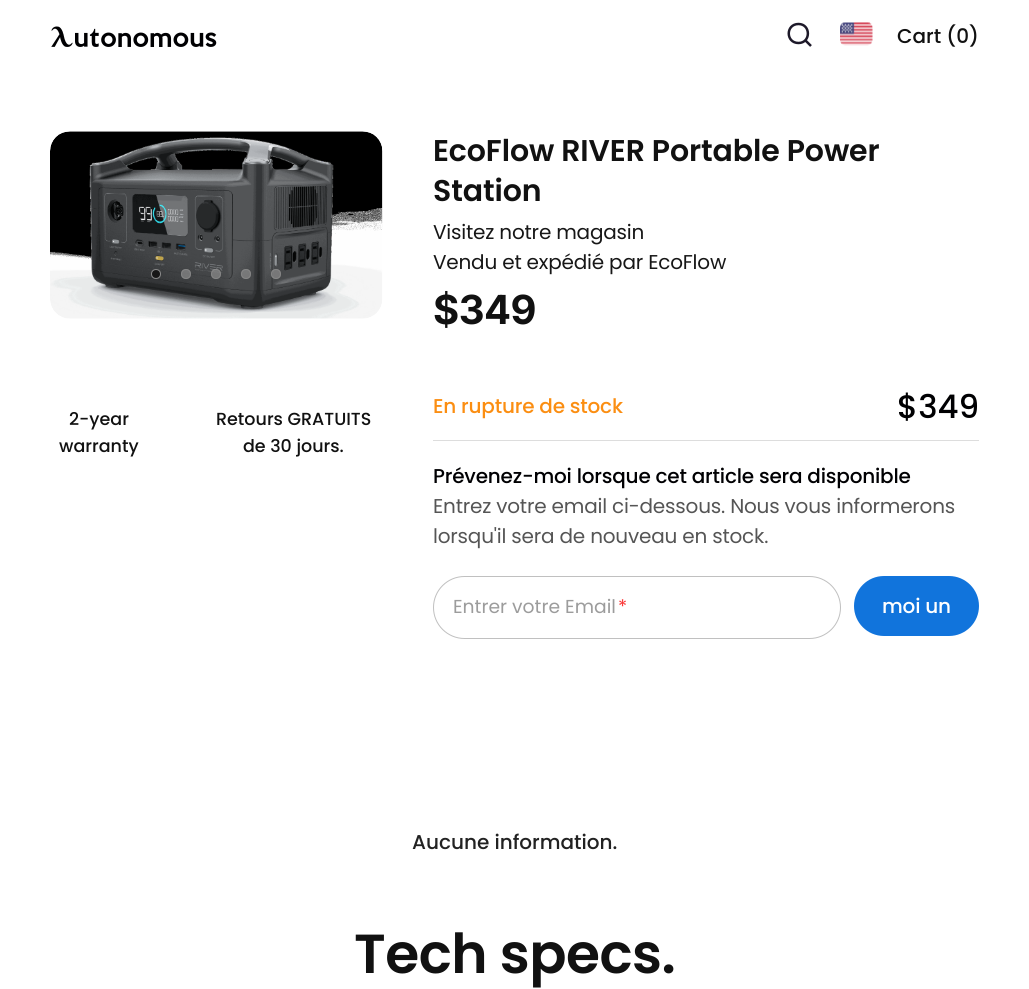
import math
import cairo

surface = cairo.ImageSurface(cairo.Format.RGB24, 1029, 989)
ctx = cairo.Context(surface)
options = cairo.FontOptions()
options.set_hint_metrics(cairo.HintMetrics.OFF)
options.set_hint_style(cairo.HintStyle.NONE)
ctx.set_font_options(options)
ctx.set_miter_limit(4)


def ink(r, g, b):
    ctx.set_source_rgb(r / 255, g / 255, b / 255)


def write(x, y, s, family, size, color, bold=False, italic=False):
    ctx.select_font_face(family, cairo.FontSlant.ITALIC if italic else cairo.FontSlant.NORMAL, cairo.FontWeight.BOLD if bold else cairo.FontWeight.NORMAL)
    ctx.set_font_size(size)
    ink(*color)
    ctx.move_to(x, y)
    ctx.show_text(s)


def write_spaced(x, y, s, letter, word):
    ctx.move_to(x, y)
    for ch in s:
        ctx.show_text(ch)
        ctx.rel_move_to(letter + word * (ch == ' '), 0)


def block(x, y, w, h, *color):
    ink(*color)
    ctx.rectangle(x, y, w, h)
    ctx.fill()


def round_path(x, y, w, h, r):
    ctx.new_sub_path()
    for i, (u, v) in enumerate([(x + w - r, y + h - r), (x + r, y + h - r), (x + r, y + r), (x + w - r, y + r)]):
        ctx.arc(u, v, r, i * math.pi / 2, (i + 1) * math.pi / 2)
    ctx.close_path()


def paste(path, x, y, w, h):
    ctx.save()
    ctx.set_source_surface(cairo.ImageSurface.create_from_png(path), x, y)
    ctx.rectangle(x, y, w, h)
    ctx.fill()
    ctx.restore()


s1 = dict(family="Poppins Medium", size=20, color=(17, 17, 17))
s2 = dict(family="Poppins Medium", size=17.5, color=(17, 17, 17))
s3 = dict(family="Poppins Medium", size=32.5, color=(0, 0, 2))
s4 = dict(family="Poppins", size=18.75, color=(156, 156, 156))
s5 = dict(family="Poppins", size=18.75, color=(250, 52, 52))
s6 = dict(family="Poppins Medium", size=20, color=(34, 34, 34))

ink(255, 255, 255)
ctx.paint()
paste("pic1.png", 51, 26, 166, 21)
ctx.new_path()
ctx.move_to(811, 46)
ctx.line_to(805, 40)
ctx.move_to(798.5, 43)
ctx.curve_to(785.5, 43, 785.5, 24, 798.5, 24)
ctx.curve_to(811, 24, 811, 43, 798.5, 43)
ctx.close_path()
ink(29, 25, 41)
ctx.set_line_width(2.5)
ctx.stroke()
paste("pic2.png", 840, 22, 33, 24)
write(897, 43, "Cart (0)", **s1)
paste("pic3.png", 50, 131, 333, 188)
ink(23, 23, 23)
ctx.arc(156, 274, 4.5, 0, 2 * math.pi)
ctx.fill_preserve()
ink(140, 140, 140)
ctx.set_line_width(1)
ctx.stroke()
ctx.set_source_rgba(0.549, 0.549, 0.549, 0.7)
ctx.arc(186, 274, 5, 0, 2 * math.pi)
ctx.fill()
ctx.arc(186, 274, 4.5, 0, 2 * math.pi)
ctx.stroke()
ctx.arc(216, 274, 5, 0, 2 * math.pi)
ctx.fill()
ctx.arc(216, 274, 4.5, 0, 2 * math.pi)
ctx.stroke()
ctx.arc(246, 274, 5, 0, 2 * math.pi)
ctx.fill()
ctx.arc(246, 274, 4.5, 0, 2 * math.pi)
ctx.stroke()
ctx.arc(276, 274, 5, 0, 2 * math.pi)
ctx.fill()
ctx.arc(276, 274, 4.5, 0, 2 * math.pi)
ctx.stroke()
write(69, 425, "2-year", **s2)
write(59, 452, "warranty", **s2)
write(216, 425, "Retours GRATUITS", **s2)
write(243, 452, "de 30 jours.", **s2)
ctx.select_font_face("Poppins SemiBold")
ctx.set_font_size(30)
write_spaced(433, 161, "EcoFlow RIVER Portable Power", -0.1, 0)
write_spaced(433, 201, "Station", -0.1, 0)
ctx.select_font_face("Poppins")
ctx.set_font_size(20)
ink(23, 23, 23)
write_spaced(433, 239, "Visitez notre magasin", -0.2, 0)
write_spaced(433, 269, "Vendu et expédié par EcoFlow", -0.2, 0)
ctx.select_font_face("Inter", cairo.FontSlant.NORMAL, cairo.FontWeight.BOLD)
ctx.set_font_size(40)
ink(17, 17, 17)
write_spaced(433, 324, "$349", -0.5, 0)
ctx.select_font_face("Poppins Medium")
ctx.set_font_size(20)
ink(251, 142, 18)
write_spaced(433, 413, "En rupture de stock", -0.2, 0)
write(897, 418, "$349", **s3)
block(433, 440, 546, 1, 221, 221, 221)
ctx.set_font_size(20)
ink(0, 0, 2)
write_spaced(433, 483, "Prévenez-moi lorsque cet article sera disponible", -0.2, 0)
ctx.select_font_face("Poppins")
ink(85, 85, 85)
write_spaced(433, 513, "Entrez votre email ci-dessous. Nous vous informerons", -0.2, 0)
write_spaced(433, 543, "lorsqu'il sera de nouveau en stock.", -0.2, 0)
round_path(433.5, 576.5, 407, 62, 31)
ink(192, 192, 192)
ctx.stroke()
write(453, 613, "Entrer votre Email", **s4)
write(618, 613, "*", **s5)
ink(17, 116, 220)
round_path(854, 576, 125, 60, 30)
ctx.fill()
ctx.select_font_face("Poppins Medium")
ctx.set_font_size(20)
ink(255, 255, 255)
write_spaced(882, 613, "moi un", -0.2, 0)
write(412, 849, "Aucune information.", **s6)
ctx.select_font_face("Poppins SemiBold")
ctx.set_font_size(55)
ink(17, 17, 17)
write_spaced(354, 973, "Tech specs.", -0.5, 0)
surface.write_to_png("screenshot.png")
